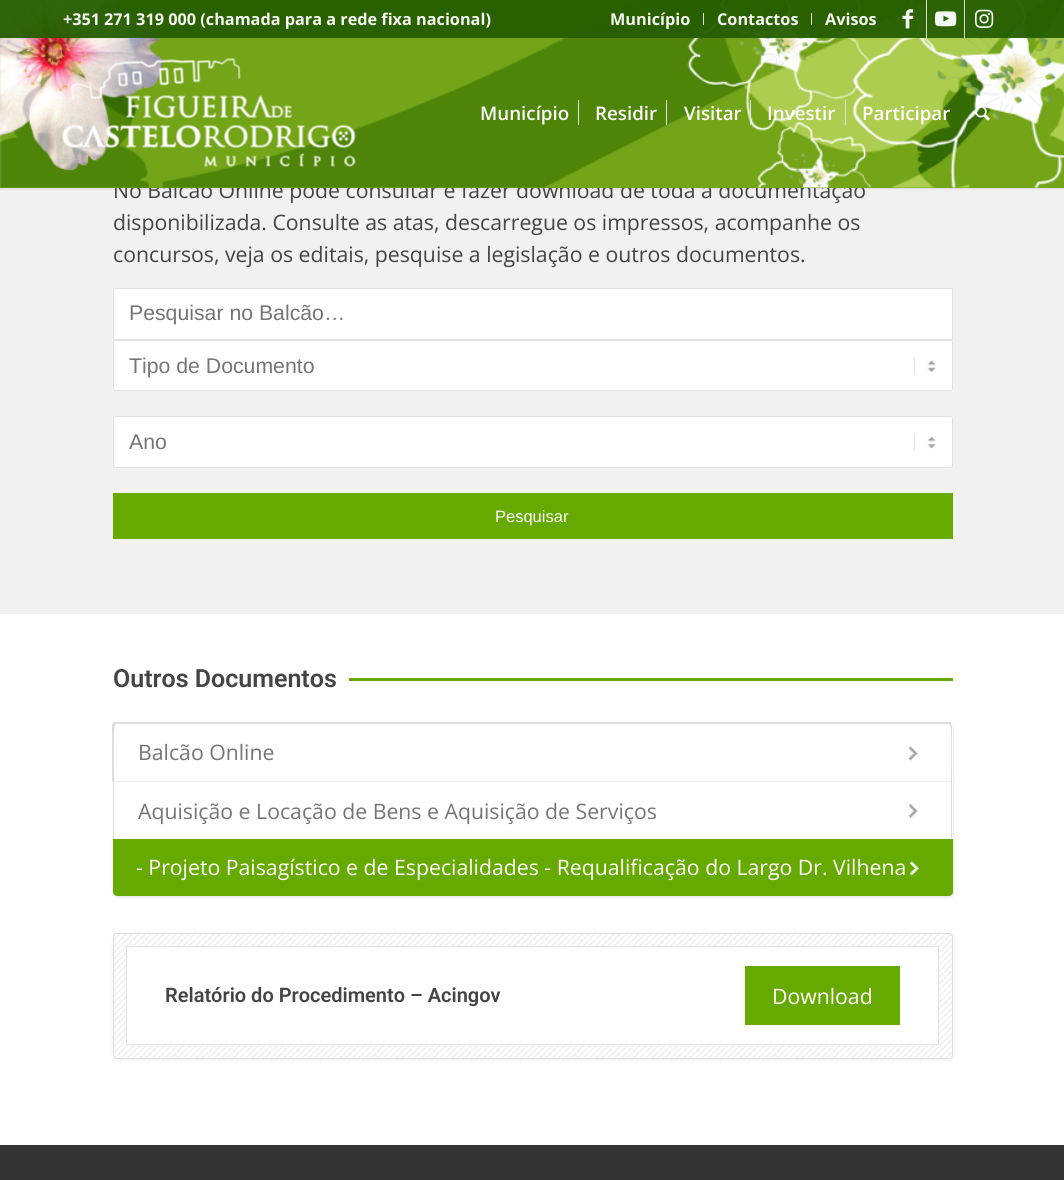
import math
import cairo

surface = cairo.ImageSurface(cairo.Format.RGB24, 1064, 1180)
ctx = cairo.Context(surface)
options = cairo.FontOptions()
options.set_hint_metrics(cairo.HintMetrics.OFF)
options.set_hint_style(cairo.HintStyle.NONE)
ctx.set_font_options(options)
ctx.set_miter_limit(4)


def ink(r, g, b):
    ctx.set_source_rgb(r / 255, g / 255, b / 255)


def write(x, y, s, family, size, color, bold=False, italic=False):
    ctx.select_font_face(family, cairo.FontSlant.ITALIC if italic else cairo.FontSlant.NORMAL, cairo.FontWeight.BOLD if bold else cairo.FontWeight.NORMAL)
    ctx.set_font_size(size)
    ink(*color)
    ctx.move_to(x, y)
    ctx.show_text(s)


def block(x, y, w, h, *color):
    ink(*color)
    ctx.rectangle(x, y, w, h)
    ctx.fill()


def round_path(x, y, w, h, r):
    ctx.new_sub_path()
    for i, (u, v) in enumerate([(x + w - r, y + h - r), (x + r, y + h - r), (x + r, y + r), (x + w - r, y + r)]):
        ctx.arc(u, v, r, i * math.pi / 2, (i + 1) * math.pi / 2)
    ctx.close_path()


def blur_box(x, y, w, h, r, blur, alpha):
    ctx.push_group_with_content(cairo.Content.ALPHA)
    ctx.set_operator(cairo.Operator.SOURCE)
    for i in range(15, -16, -2):
        e = blur * i / 6
        if min(w, h) + 2 * e > 0:
            ctx.set_source_rgba(0, 0, 0, alpha * math.erfc((i - 1) / 8.5) / 2)
            round_path(x - e, y - e, w + 2 * e, h + 2 * e, max(0, min(r + e + blur * .6, min(w, h) / 2 + e)))
            ctx.fill()
    ctx.mask(ctx.pop_group())


def paste(path, x, y, w, h):
    ctx.save()
    ctx.set_source_surface(cairo.ImageSurface.create_from_png(path), x, y)
    ctx.rectangle(x, y, w, h)
    ctx.fill()
    ctx.restore()


s1 = dict(family="Open Sans", size=21.25, color=(68, 68, 68))
s2 = dict(family="Open Sans", size=16.25, color=(245, 247, 243), bold=True)
s3 = dict(family="Open Sans SemiBold", size=18.75, color=(255, 255, 255))
s4 = dict(family="Liberation Sans", size=21.25, color=(117, 117, 117))
s5 = dict(family="Liberation Sans", size=16.5, color=(255, 255, 255))
s6 = dict(family="Roboto SemiBold", size=25, color=(68, 68, 68))
s7 = dict(family="Open Sans", size=21.25, color=(117, 117, 117))
s8 = dict(family="Open Sans", size=21.25, color=(255, 255, 255))
s9 = dict(family="Roboto SemiBold", size=20, color=(68, 68, 68))

ink(241, 241, 241)
ctx.paint()
ink(0, 0, 0)
blur_box(-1, -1, 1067, 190, 0, 1, 0.1)
write(113, 198, "No Balcão Online pode consultar e fazer download de toda a documentação", **s1)
block(0, 187, 1064, 1, 116, 165, 25)
paste("pic1.png", 0, 0, 1064, 188)
ctx.set_source_rgba(0.149, 0.369, 0, 0.95)
ctx.rectangle(0, 0, 1064, 38)
ctx.fill()
write(63, 25, "+351", **s2)
write(104, 25, "271 319 000 (chamada para a rede fixa nacional)", **s2)
block(703, 13, 1, 12, 218, 220, 214)
write(610, 25, "Município", **s2)
block(811, 13, 1, 12, 216, 219, 214)
write(717, 25, "Contactos", **s2)
write(825, 25, "Avisos", **s2)
ctx.set_source_rgba(0.882, 0.882, 0.882, 0.95)
ctx.rectangle(926, 0, 1, 38)
ctx.fill()
paste("pic2.png", 902, 9, 12, 20)
block(964, 0, 1, 38, 216, 219, 214)
paste("pic3.png", 935, 11, 22, 16)
paste("pic4.png", 975, 9, 19, 19)
paste("pic5.png", 62, 58, 294, 109)
write(480, 120, "Município", **s3)
write(595, 120, "Residir", **s3)
block(578, 100, 1, 25, 225, 225, 225)
write(684, 120, "Visitar", **s3)
block(666, 100, 1, 25, 225, 225, 225)
write(767, 120, "Investir", **s3)
block(750, 100, 1, 25, 225, 225, 225)
write(862, 120, "Participar", **s3)
block(845, 100, 1, 25, 225, 225, 225)
paste("pic6.png", 975, 106, 15, 15)
write(113, 230, "disponibilizada. Consulte as atas, descarregue os impressos, acompanhe os", **s1)
write(113, 262, "concursos, veja os editais, pesquise a legislação e outros documentos.", **s1)
ink(255, 255, 255)
ctx.rectangle(113.5, 288.5, 839, 51)
ctx.fill_preserve()
ink(225, 225, 225)
ctx.set_line_width(1)
ctx.stroke()
write(129, 320, "Pesquisar no Balcão…", **s4)
ink(255, 255, 255)
round_path(113, 340, 840, 51, 2.5)
ctx.fill()
paste("pic7.png", 913, 357, 23, 17)
round_path(113.5, 340.5, 839, 50, 2)
ink(225, 225, 225)
ctx.stroke()
write(129, 373, "Tipo de Documento", **s4)
ink(255, 255, 255)
round_path(113, 416, 840, 52, 2.5)
ctx.fill()
paste("pic8.png", 913, 434, 23, 17)
round_path(113.5, 416.5, 839, 51, 2)
ink(225, 225, 225)
ctx.stroke()
write(129, 449, "Ano", **s4)
block(113, 493, 840, 46, 102, 170, 0)
write(495, 522, "Pesquisar", **s5)
block(0, 614, 1064, 531, 255, 255, 255)
write(113, 687, "Outros Documentos", **s6)
block(349, 678, 604, 3, 102, 170, 0)
ink(0, 0, 0)
blur_box(114, 724, 840, 174, 4, 1, 0.08)
ink(255, 255, 255)
round_path(113, 723, 840, 173, 4)
ctx.fill()
paste("pic9.png", 908, 746, 10, 15)
ink(221, 221, 221)
ctx.new_path()
ctx.move_to(116, 724)
ctx.line_to(115, 725)
ctx.line_to(113, 723)
ctx.line_to(114, 722)
ctx.line_to(951, 722)
ctx.line_to(951, 724)
ctx.line_to(950, 725)
ctx.line_to(949, 724)
ctx.close_path()
ctx.fill()
ctx.new_path()
ctx.move_to(951, 724)
ctx.line_to(952, 726)
ctx.line_to(952, 782)
ctx.line_to(951, 781)
ctx.curve_to(951, 775, 952, 726, 950, 725)
ctx.close_path()
ctx.fill()
ctx.new_path()
ctx.move_to(112, 724)
ctx.line_to(113, 723)
ctx.line_to(115, 725)
ctx.curve_to(113, 726, 114, 775, 114, 781)
ctx.line_to(112, 782)
ctx.close_path()
ctx.fill()
write(138, 760, "Balcão Online", **s7)
paste("pic10.png", 908, 804, 10, 14)
block(113, 781, 840, 1, 239, 239, 239)
block(951, 781, 1, 59, 221, 221, 221)
block(113, 781, 1, 59, 221, 221, 221)
write(138, 819, "Aquisição e Locação de Bens e Aquisição de Serviços", **s7)
ink(102, 170, 0)
ctx.new_path()
ctx.move_to(113, 839)
ctx.line_to(953, 839)
ctx.line_to(953, 892)
ctx.curve_to(953, 894, 951, 896, 949, 896)
ctx.line_to(117, 896)
ctx.curve_to(115, 896, 113, 894, 113, 892)
ctx.close_path()
ctx.fill()
paste("pic11.png", 910, 861, 9, 15)
write(136, 875, "- Projeto Paisagístico e de Especialidades - Requalificação do Largo Dr. Vilhena", **s8)
ink(180, 180, 180)
blur_box(114, 934, 840, 126, 4, 2, 0.2)
ink(255, 255, 255)
round_path(113, 933, 840, 126, 4)
ctx.fill()
paste("pic12.png", 113, 933, 839, 126)
round_path(113.5, 933.5, 839, 125, 3.5)
ink(221, 221, 221)
ctx.stroke()
ink(255, 255, 255)
ctx.rectangle(126.5, 946.5, 812, 98)
ctx.fill_preserve()
ink(227, 227, 227)
ctx.stroke()
write(165, 1002, "Relatório do Procedimento – Acingov", **s9)
block(745, 966, 155, 59, 102, 170, 0)
write(772, 1004, "Download", **s8)
block(0, 1145, 1064, 35, 52, 52, 52)
surface.write_to_png("screenshot.png")
